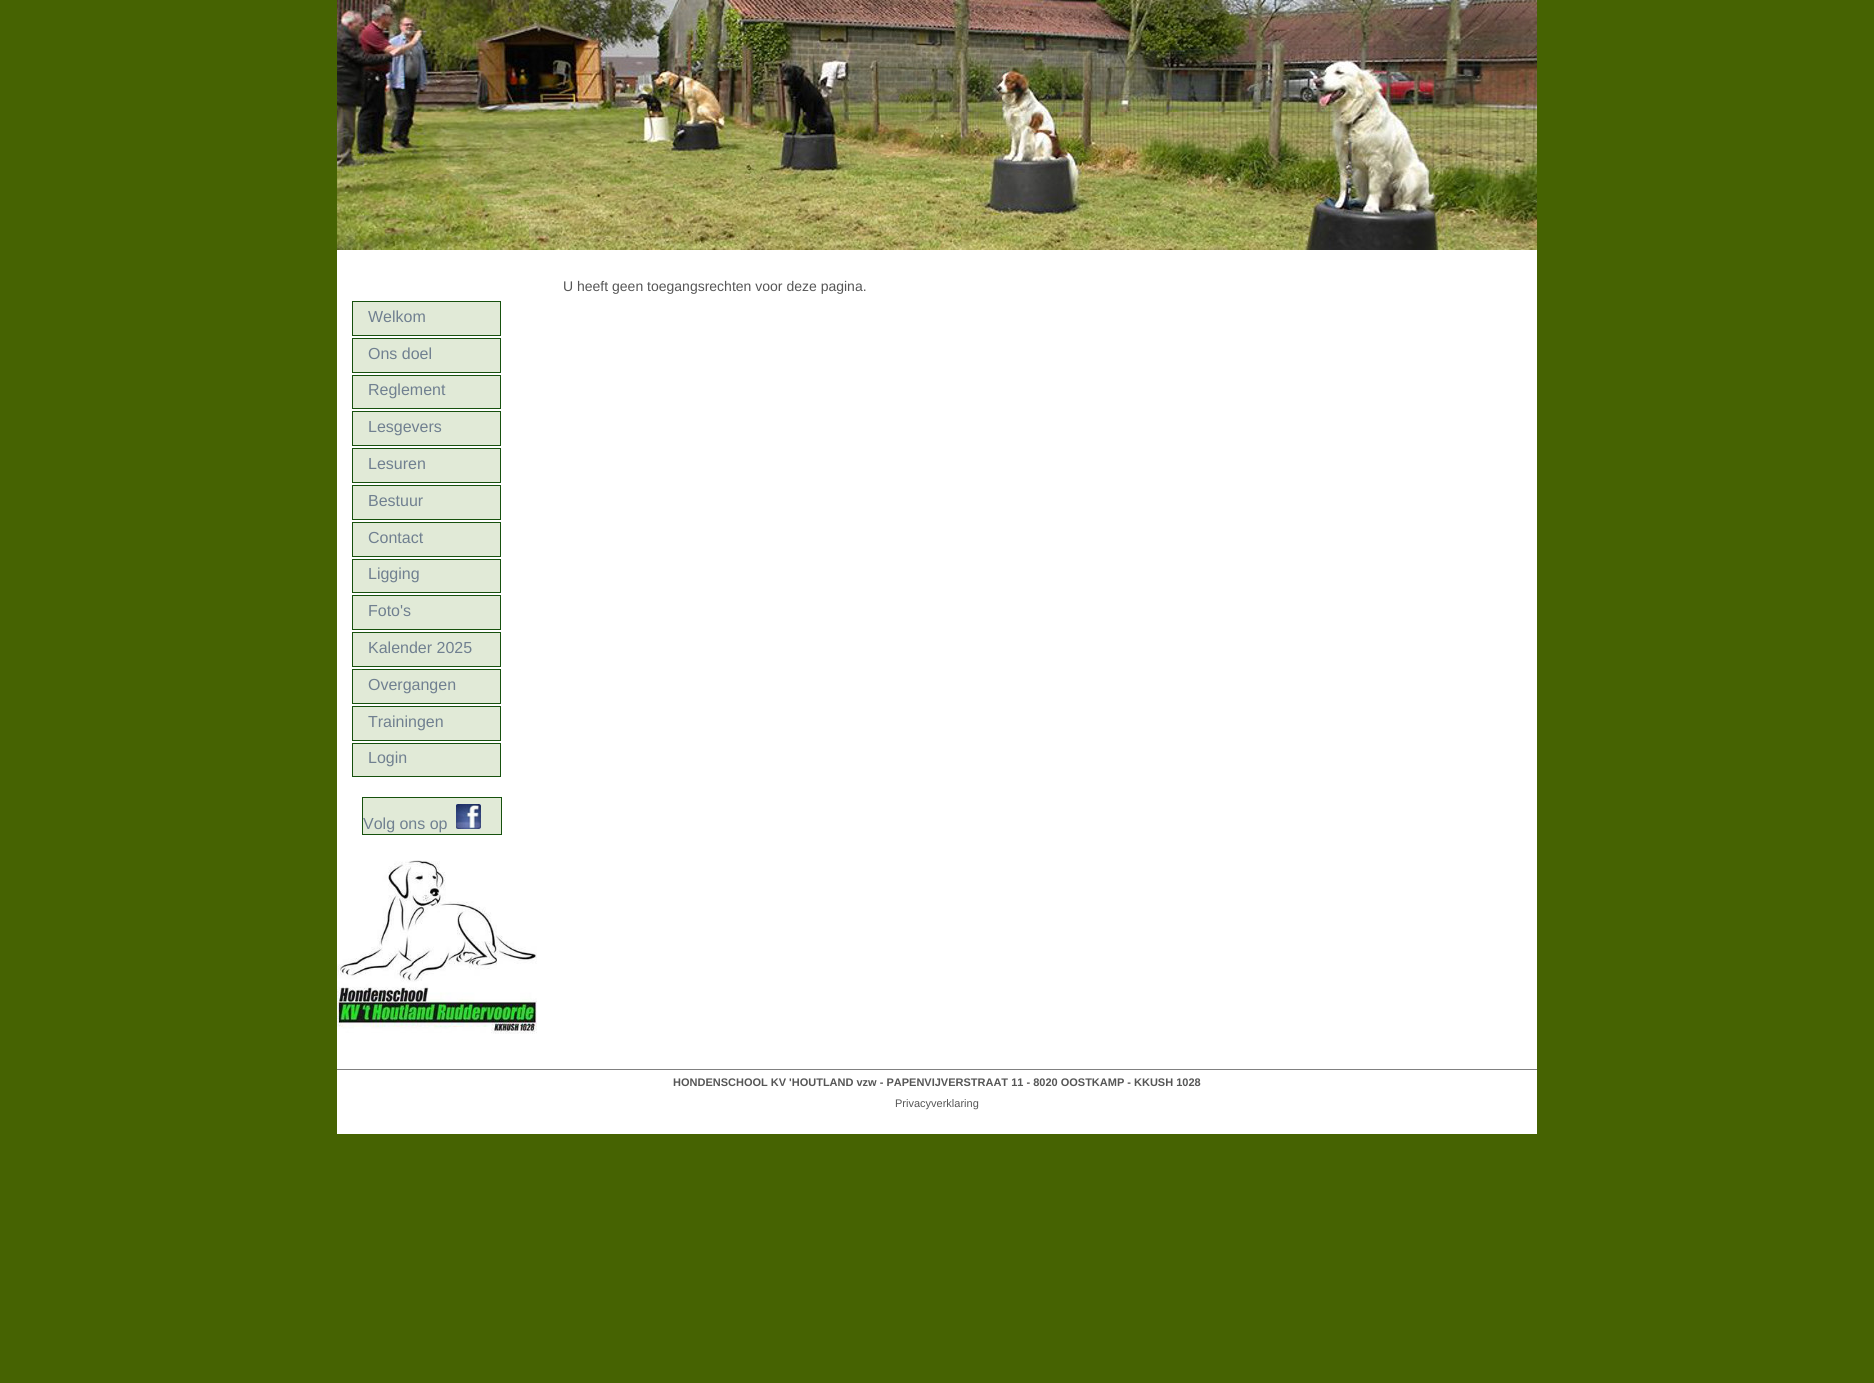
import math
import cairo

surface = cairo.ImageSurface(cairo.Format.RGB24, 1874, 1383)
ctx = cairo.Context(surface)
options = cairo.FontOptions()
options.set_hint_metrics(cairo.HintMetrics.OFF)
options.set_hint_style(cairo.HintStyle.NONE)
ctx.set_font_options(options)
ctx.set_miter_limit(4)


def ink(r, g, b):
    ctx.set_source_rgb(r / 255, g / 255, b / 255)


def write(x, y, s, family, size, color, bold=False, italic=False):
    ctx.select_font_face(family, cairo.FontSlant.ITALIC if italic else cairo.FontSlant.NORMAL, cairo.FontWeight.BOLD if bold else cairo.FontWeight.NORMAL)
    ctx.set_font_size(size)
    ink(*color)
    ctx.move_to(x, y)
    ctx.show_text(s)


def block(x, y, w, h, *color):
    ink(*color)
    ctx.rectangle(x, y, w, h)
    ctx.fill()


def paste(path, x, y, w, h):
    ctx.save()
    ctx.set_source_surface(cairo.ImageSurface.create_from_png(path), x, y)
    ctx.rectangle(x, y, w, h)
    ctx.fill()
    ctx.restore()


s1 = dict(family="Liberation Sans", size=14, color=(86, 86, 86))
s2 = dict(family="Liberation Sans", size=16, color=(112, 128, 144))
s3 = dict(family="Liberation Sans", size=11, color=(86, 86, 86), bold=True)
s4 = dict(family="Liberation Sans", size=11, color=(86, 86, 86))

ink(70, 99, 2)
ctx.paint()
block(337, 250, 1200, 884, 255, 255, 255)
paste("pic1.png", 337, 0, 1200, 250)
write(563, 291, "U heeft geen toegangsrechten voor deze pagina.", **s1)
ink(225, 234, 215)
ctx.rectangle(352.5, 301.5, 148, 34)
ctx.fill_preserve()
ink(22, 81, 13)
ctx.set_line_width(1)
ctx.stroke()
write(368, 322, "Welkom", **s2)
ink(225, 234, 215)
ctx.rectangle(352.5, 338.5, 148, 34)
ctx.fill_preserve()
ink(22, 81, 13)
ctx.stroke()
write(368, 359, "Ons doel", **s2)
ink(225, 234, 215)
ctx.rectangle(352.5, 375.5, 148, 33)
ctx.fill_preserve()
ink(22, 81, 13)
ctx.stroke()
write(368, 395, "Reglement", **s2)
ink(225, 234, 215)
ctx.rectangle(352.5, 411.5, 148, 34)
ctx.fill_preserve()
ink(22, 81, 13)
ctx.stroke()
write(368, 432, "Lesgevers", **s2)
ink(225, 234, 215)
ctx.rectangle(352.5, 448.5, 148, 34)
ctx.fill_preserve()
ink(22, 81, 13)
ctx.stroke()
write(368, 469, "Lesuren", **s2)
ink(225, 234, 215)
ctx.rectangle(352.5, 485.5, 148, 34)
ctx.fill_preserve()
ink(22, 81, 13)
ctx.stroke()
write(368, 506, "Bestuur", **s2)
ink(225, 234, 215)
ctx.rectangle(352.5, 522.5, 148, 34)
ctx.fill_preserve()
ink(22, 81, 13)
ctx.stroke()
write(368, 543, "Contact", **s2)
ink(225, 234, 215)
ctx.rectangle(352.5, 559.5, 148, 33)
ctx.fill_preserve()
ink(22, 81, 13)
ctx.stroke()
write(368, 579, "Ligging", **s2)
ink(225, 234, 215)
ctx.rectangle(352.5, 595.5, 148, 34)
ctx.fill_preserve()
ink(22, 81, 13)
ctx.stroke()
write(368, 616, "Foto's", **s2)
ink(225, 234, 215)
ctx.rectangle(352.5, 632.5, 148, 34)
ctx.fill_preserve()
ink(22, 81, 13)
ctx.stroke()
write(368, 653, "Kalender 2025", **s2)
ink(225, 234, 215)
ctx.rectangle(352.5, 669.5, 148, 34)
ctx.fill_preserve()
ink(22, 81, 13)
ctx.stroke()
write(368, 690, "Overgangen", **s2)
ink(225, 234, 215)
ctx.rectangle(352.5, 706.5, 148, 34)
ctx.fill_preserve()
ink(22, 81, 13)
ctx.stroke()
write(368, 727, "Trainingen", **s2)
ink(225, 234, 215)
ctx.rectangle(352.5, 743.5, 148, 33)
ctx.fill_preserve()
ink(22, 81, 13)
ctx.stroke()
write(368, 763, "Login", **s2)
ink(225, 234, 215)
ctx.rectangle(362.5, 797.5, 139, 37)
ctx.fill_preserve()
ink(22, 81, 13)
ctx.stroke()
write(363, 829, "Volg ons op", **s2)
paste("pic2.png", 456, 804, 25, 25)
paste("pic3.png", 337, 860, 200, 174)
block(337, 1069, 1200, 1, 128, 128, 128)
write(673, 1086, "HONDENSCHOOL KV 'HOUTLAND vzw - PAPENVIJVERSTRAAT 11 - 8020 OOSTKAMP - KKUSH 1028", **s3)
write(895, 1107, "Privacyverklaring", **s4)
surface.write_to_png("screenshot.png")
